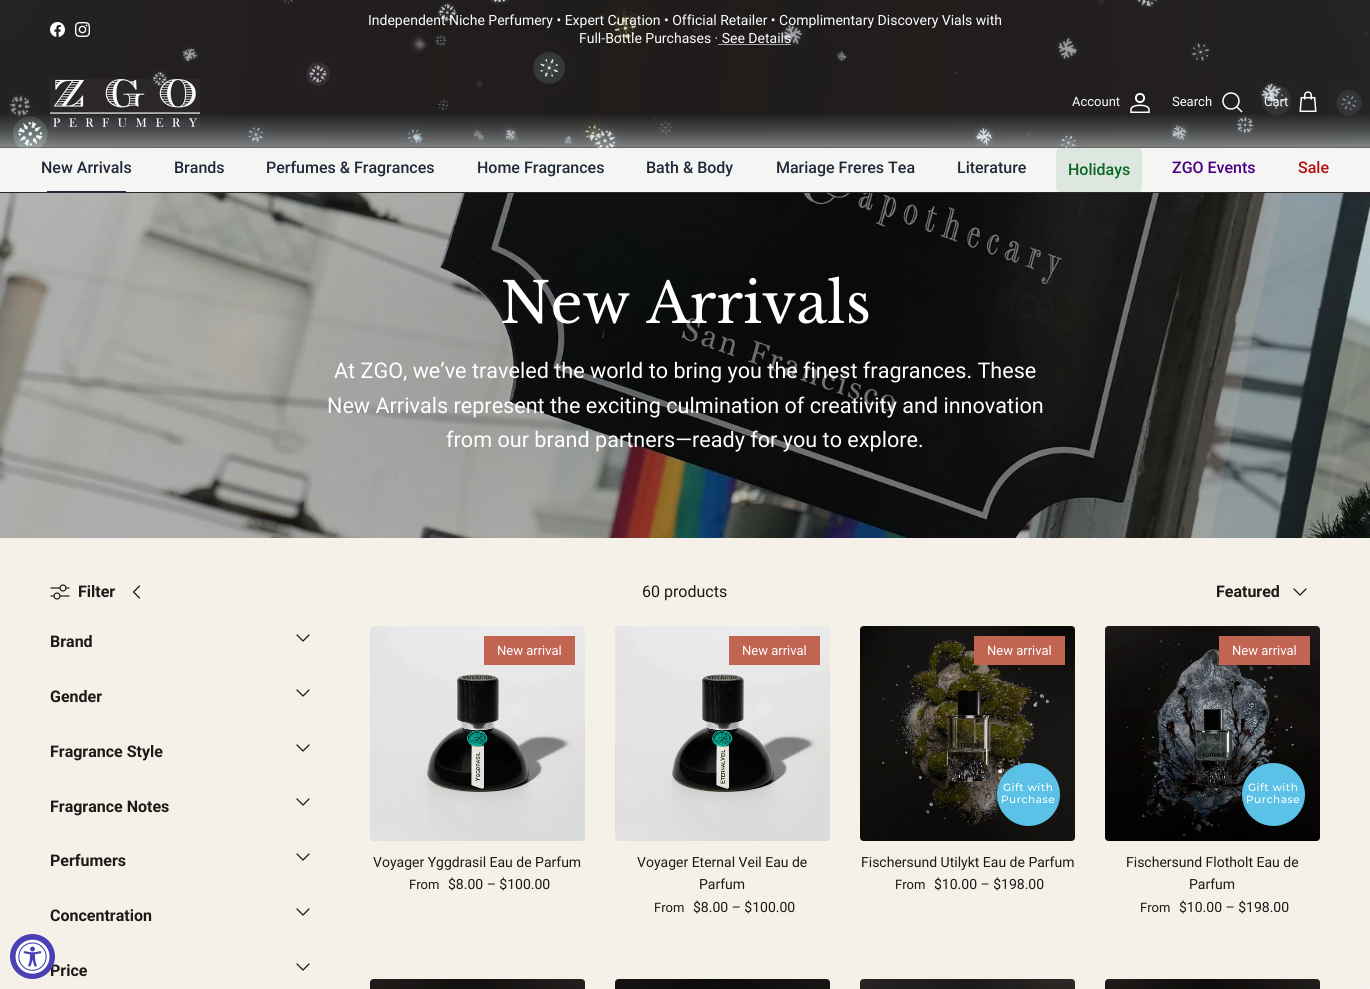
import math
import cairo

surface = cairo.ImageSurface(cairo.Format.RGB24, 1370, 989)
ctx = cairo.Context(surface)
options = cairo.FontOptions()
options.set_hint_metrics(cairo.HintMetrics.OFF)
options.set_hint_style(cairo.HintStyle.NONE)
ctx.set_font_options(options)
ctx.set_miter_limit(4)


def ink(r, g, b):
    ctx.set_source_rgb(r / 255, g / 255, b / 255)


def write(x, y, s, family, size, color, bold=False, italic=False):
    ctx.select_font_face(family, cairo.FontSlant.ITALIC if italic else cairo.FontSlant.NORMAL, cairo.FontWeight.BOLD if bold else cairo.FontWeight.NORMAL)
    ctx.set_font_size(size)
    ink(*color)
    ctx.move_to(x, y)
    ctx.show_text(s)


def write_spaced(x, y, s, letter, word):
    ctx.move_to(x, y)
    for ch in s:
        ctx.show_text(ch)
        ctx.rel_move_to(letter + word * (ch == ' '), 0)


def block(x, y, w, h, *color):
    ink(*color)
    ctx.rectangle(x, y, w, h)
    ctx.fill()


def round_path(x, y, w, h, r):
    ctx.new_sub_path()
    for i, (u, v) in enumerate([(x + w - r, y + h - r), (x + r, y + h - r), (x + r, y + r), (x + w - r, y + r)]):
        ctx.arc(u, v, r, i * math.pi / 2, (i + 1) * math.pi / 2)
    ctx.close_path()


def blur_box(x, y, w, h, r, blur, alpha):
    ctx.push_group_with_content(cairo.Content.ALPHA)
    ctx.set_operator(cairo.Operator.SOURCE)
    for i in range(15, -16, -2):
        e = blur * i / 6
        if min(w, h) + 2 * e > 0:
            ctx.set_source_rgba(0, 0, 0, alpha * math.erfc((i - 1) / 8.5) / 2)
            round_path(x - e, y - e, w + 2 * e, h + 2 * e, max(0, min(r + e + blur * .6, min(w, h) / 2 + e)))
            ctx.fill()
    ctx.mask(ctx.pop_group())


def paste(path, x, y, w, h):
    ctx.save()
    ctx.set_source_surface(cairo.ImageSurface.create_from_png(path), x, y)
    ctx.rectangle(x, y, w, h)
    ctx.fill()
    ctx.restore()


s1 = dict(family="Roboto", size=14, color=(255, 255, 255))
s2 = dict(family="Roboto", size=13, color=(255, 255, 255))
s3 = dict(family="Roboto Medium", size=16, color=(31, 41, 55))
s4 = dict(family="Roboto Medium", size=16, color=(11, 102, 35))
s5 = dict(family="Roboto Medium", size=16, color=(75, 0, 130))
s6 = dict(family="Roboto Medium", size=16, color=(184, 15, 10))
s7 = dict(family="Roboto", size=16, color=(28, 25, 23), bold=True)
s8 = dict(family="Libre Baskerville", size=56, color=(255, 255, 255))
s9 = dict(family="Roboto", size=21.6, color=(255, 255, 255))
s10 = dict(family="Roboto", size=16, color=(28, 25, 23))
s11 = dict(family="Roboto", size=14, color=(28, 25, 23))
s12 = dict(family="Roboto", size=13, color=(28, 25, 23))

ink(245, 241, 232)
ctx.paint()
block(0, 0, 1370, 147, 28, 25, 23)
paste("pic2.png", 50, 22, 15, 15)
paste("pic3.png", 75, 22, 15, 15)
write(368, 25, "Independent Niche Perfumery • Expert Curation • Official Retailer • Complimentary Discovery Vials with", **s1)
write(579, 43, "Full-Bottle Purchases · See Details", **s1)
block(718, 44, 73, 1, 164, 163, 162)
block(0, 147, 1370, 1, 43, 39, 35)
paste("pic4.png", 50, 79, 150, 48)
write(1072, 106, "Account", **s2)
paste("pic5.png", 1130, 93, 20, 20)
write(1172, 106, "Search", **s2)
ctx.new_path()
ctx.arc(1231, 101, 8, 0, 2 * math.pi)
ctx.set_line_width(1.5)
ctx.stroke()
ctx.new_path()
ctx.move_to(1237, 107)
ctx.line_to(1241.5, 111.5)
ctx.set_line_cap(cairo.LineCap.SQUARE)
ctx.stroke()
write(1264, 106, "Cart", **s2)
paste("pic6.png", 1299, 91, 18, 21)
paste("pic1.png", 0, 0, 1370, 148)
block(0, 192, 1370, 1, 43, 39, 35)
block(0, 148, 1370, 44, 245, 245, 244)
write(41, 173, "New Arrivals", **s3)
block(47, 191, 79, 2, 31, 41, 55)
write(174, 173, "Brands", **s3)
write(266, 173, "Perfumes & Fragrances", **s3)
write(477, 173, "Home Fragrances", **s3)
write(646, 173, "Bath & Body", **s3)
write(776, 173, "Mariage Freres Tea", **s3)
write(957, 173, "Literature", **s3)
ink(222, 231, 223)
round_path(1056, 148, 86, 44, 4)
ctx.fill()
write(1068, 175, "Holidays", **s4)
write(1172, 173, "ZGO Events", **s5)
write(1298, 173, "Sale", **s6)
write(50, 976, "Price", **s7)
ink(73, 64, 181)
ctx.new_path()
ctx.arc(32.5, 956.5, 22.5, 0, 2 * math.pi)
ctx.fill()
paste("pic7.png", 15, 939, 35, 35)
paste("pic8.png", 0, 193, 1370, 345)
write(500, 323, "New Arrivals", **s8)
write(334, 378, "At ZGO, we’ve traveled the world to bring you the finest fragrances. These", **s9)
write(327, 413, "New Arrivals represent the exciting culmination of creativity and innovation", **s9)
write(446, 447, "from our brand partners—ready for you to explore.", **s9)
paste("pic9.png", 50, 584, 20, 16)
write(78, 597, "Filter", **s7)
ctx.new_path()
ctx.move_to(139.5, 586)
ctx.line_to(133.5, 592)
ctx.line_to(139.5, 598)
ctx.set_line_width(1.3)
ctx.set_line_cap(cairo.LineCap.ROUND)
ctx.set_line_join(cairo.LineJoin.ROUND)
ctx.stroke()
write(642, 597, "60 products", **s10)
write(1216, 597, "Featured", **s7)
ctx.new_path()
ctx.move_to(1294, 589)
ctx.line_to(1300, 595)
ctx.line_to(1306, 589)
ctx.stroke()
write(50, 647, "Brand", **s7)
ctx.new_path()
ctx.move_to(297, 635)
ctx.line_to(303, 641)
ctx.line_to(309, 635)
ctx.move_to(297, 690)
ctx.line_to(303, 696)
ctx.line_to(309, 690)
ctx.stroke()
write(50, 702, "Gender", **s7)
write(50, 757, "Fragrance Style", **s7)
ctx.new_path()
ctx.move_to(297, 745)
ctx.line_to(303, 751)
ctx.line_to(309, 745)
ctx.move_to(297, 799)
ctx.line_to(303, 805)
ctx.line_to(309, 799)
ctx.stroke()
write(50, 812, "Fragrance Notes", **s7)
write(50, 866, "Perfumers", **s7)
ctx.new_path()
ctx.move_to(297, 854)
ctx.line_to(303, 860)
ctx.line_to(309, 854)
ctx.move_to(297, 909)
ctx.line_to(303, 915)
ctx.line_to(309, 909)
ctx.stroke()
write(50, 921, "Concentration", **s7)
ctx.new_path()
ctx.move_to(297, 964)
ctx.line_to(303, 970)
ctx.line_to(309, 964)
ctx.stroke()
paste("pic10.png", 370, 626, 215, 215)
block(484, 636, 91, 29, 193, 100, 82)
write(497, 655, "New arrival", **s2)
write(373, 867, "Voyager Yggdrasil Eau de Parfum", **s11)
write(409, 889, "From", **s12)
write(448, 889, "$8.00 – $100.00", **s11)
paste("pic11.png", 615, 626, 215, 215)
block(729, 636, 91, 29, 193, 100, 82)
write(742, 655, "New arrival", **s2)
write(637, 867, "Voyager Eternal Veil Eau de", **s11)
write(699, 889, "Parfum", **s11)
write(654, 912, "From", **s12)
write(693, 912, "$8.00 – $100.00", **s11)
paste("pic12.png", 860, 626, 215, 215)
block(974, 636, 91, 29, 193, 100, 82)
write(987, 655, "New arrival", **s2)
ink(0, 0, 0)
blur_box(997, 764, 63, 63, 31.5, 1, 0.08)
ink(91, 193, 230)
ctx.arc(1028.5, 794.5, 31.5, 0, 2 * math.pi)
ctx.fill()
ctx.select_font_face("Montserrat Medium")
ctx.set_font_size(10.5)
ink(255, 255, 255)
write_spaced(1003, 791, "Gift with", 0.5, 0)
write_spaced(1001, 803, "Purchase", 0.5, 0)
write(861, 867, "Fischersund Utilykt Eau de Parfum", **s11)
write(895, 889, "From", **s12)
write(934, 889, "$10.00 – $198.00", **s11)
paste("pic13.png", 1105, 626, 215, 215)
block(1219, 636, 91, 29, 193, 100, 82)
write(1232, 655, "New arrival", **s2)
ink(91, 193, 230)
ctx.new_path()
ctx.arc(1273.5, 794.5, 31.5, 0, 2 * math.pi)
ctx.fill()
ctx.select_font_face("Montserrat Medium")
ctx.set_font_size(10.5)
ink(255, 255, 255)
write_spaced(1248, 791, "Gift with", 0.5, 0)
write_spaced(1246, 803, "Purchase", 0.5, 0)
write(1126, 867, "Fischersund Flotholt Eau de", **s11)
write(1189, 889, "Parfum", **s11)
write(1140, 912, "From", **s12)
write(1179, 912, "$10.00 – $198.00", **s11)
paste("pic14.png", 370, 979, 215, 10)
paste("pic15.png", 615, 979, 215, 10)
paste("pic16.png", 860, 979, 215, 10)
paste("pic17.png", 1105, 979, 215, 10)
block(1368, 987, 2, 2, 245, 245, 245)
surface.write_to_png("screenshot.png")
